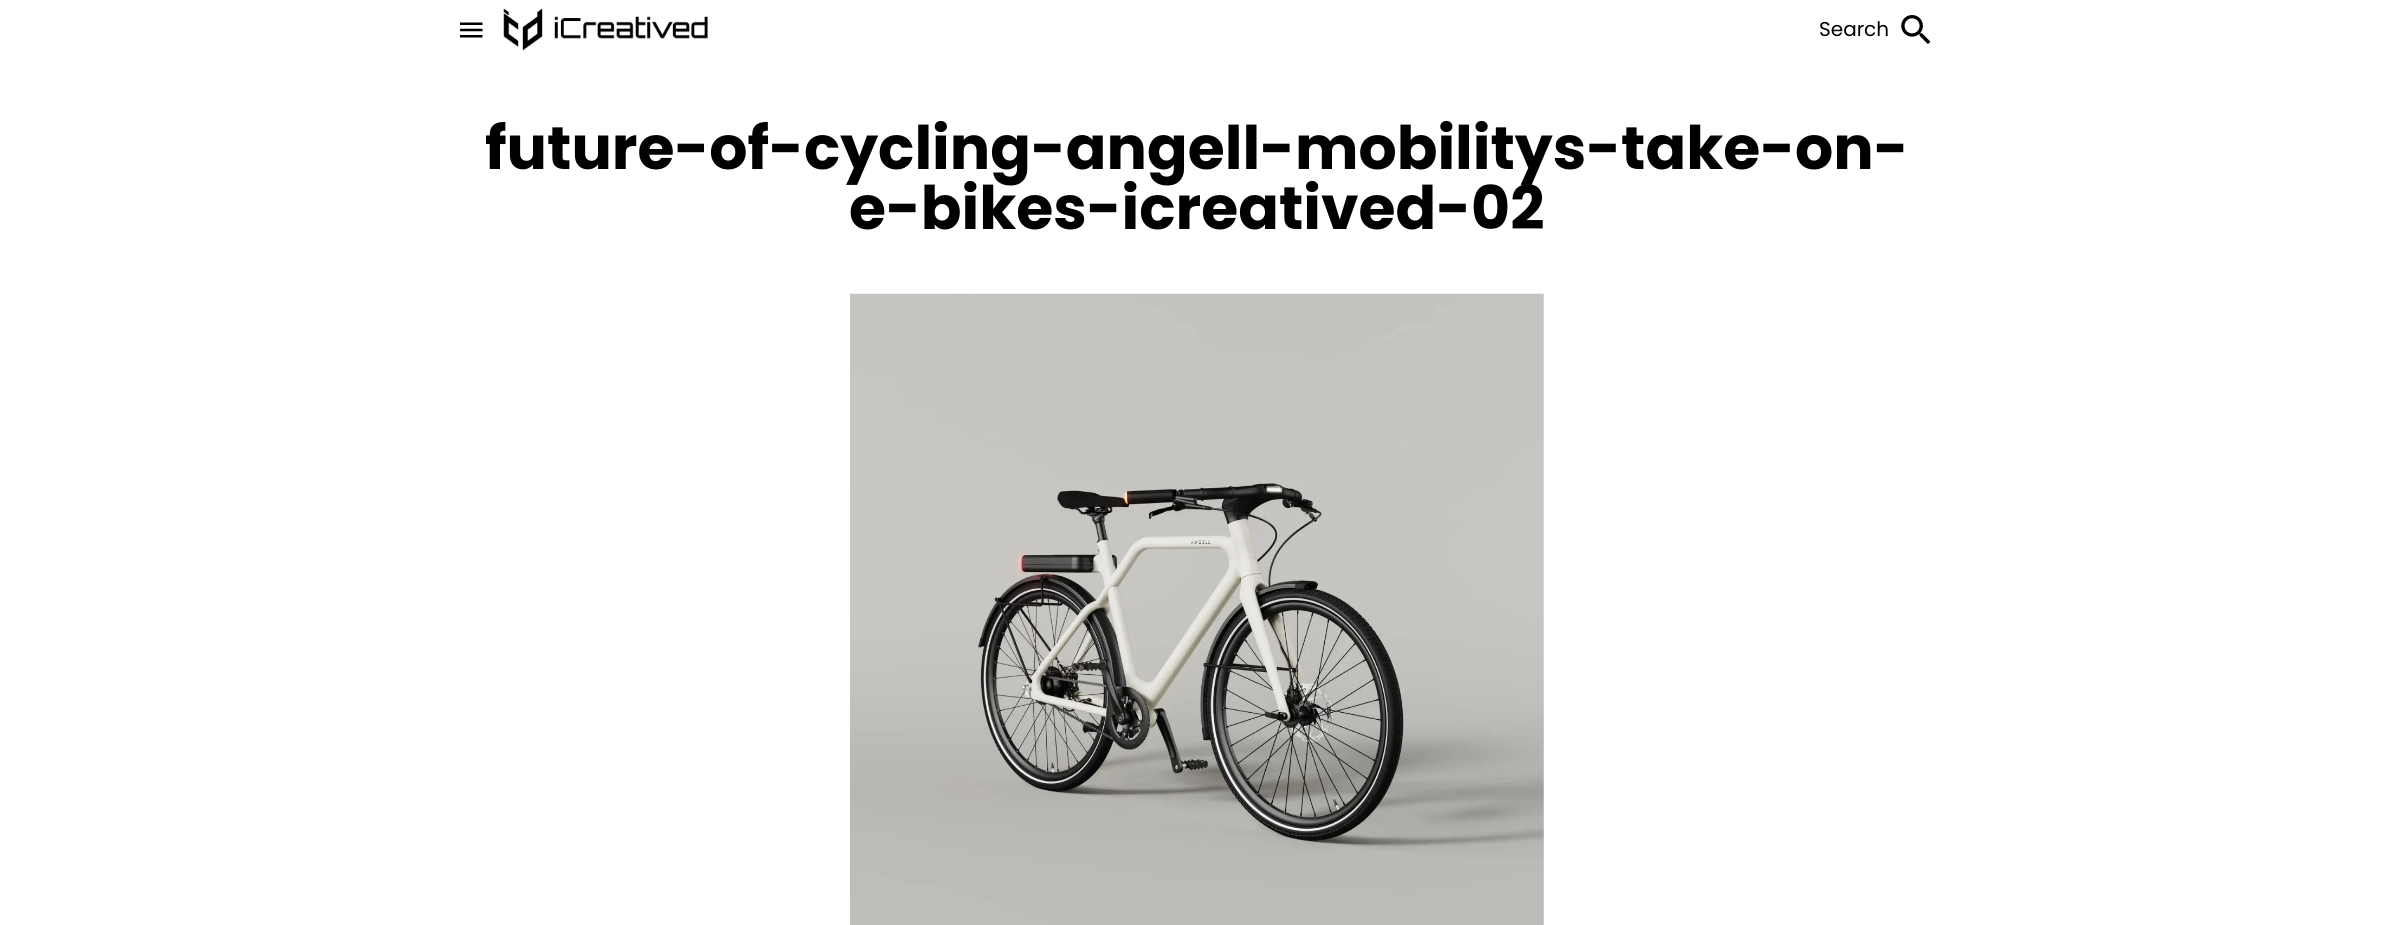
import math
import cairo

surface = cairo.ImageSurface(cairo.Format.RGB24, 2392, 925)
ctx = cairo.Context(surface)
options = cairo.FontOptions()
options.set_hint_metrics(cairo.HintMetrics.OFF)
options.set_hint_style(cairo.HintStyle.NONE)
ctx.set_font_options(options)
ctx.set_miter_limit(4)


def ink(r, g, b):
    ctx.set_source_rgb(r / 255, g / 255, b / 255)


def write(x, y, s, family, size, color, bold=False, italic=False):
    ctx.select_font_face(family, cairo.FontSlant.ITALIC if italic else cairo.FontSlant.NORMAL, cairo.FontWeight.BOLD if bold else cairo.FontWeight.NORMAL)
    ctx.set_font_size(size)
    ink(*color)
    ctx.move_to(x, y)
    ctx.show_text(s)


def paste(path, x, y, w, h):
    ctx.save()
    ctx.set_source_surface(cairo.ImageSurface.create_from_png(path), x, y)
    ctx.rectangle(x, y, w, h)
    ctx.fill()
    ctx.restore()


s1 = dict(family="Poppins", size=20, color=(0, 0, 0))
s2 = dict(family="Poppins", size=60, color=(0, 0, 0), bold=True)

ink(255, 255, 255)
ctx.paint()
paste("pic1.png", 460, 22, 23, 16)
paste("pic2.png", 503, 8, 205, 43)
write(1819, 36, "Search", **s1)
paste("pic3.png", 1901, 15, 30, 29)
write(485, 169, "future-of-cycling-angell-mobilitys-take-on-", **s2)
write(849, 229, "e-bikes-icreatived-02", **s2)
paste("pic4.png", 850, 293, 694, 632)
surface.write_to_png("screenshot.png")
